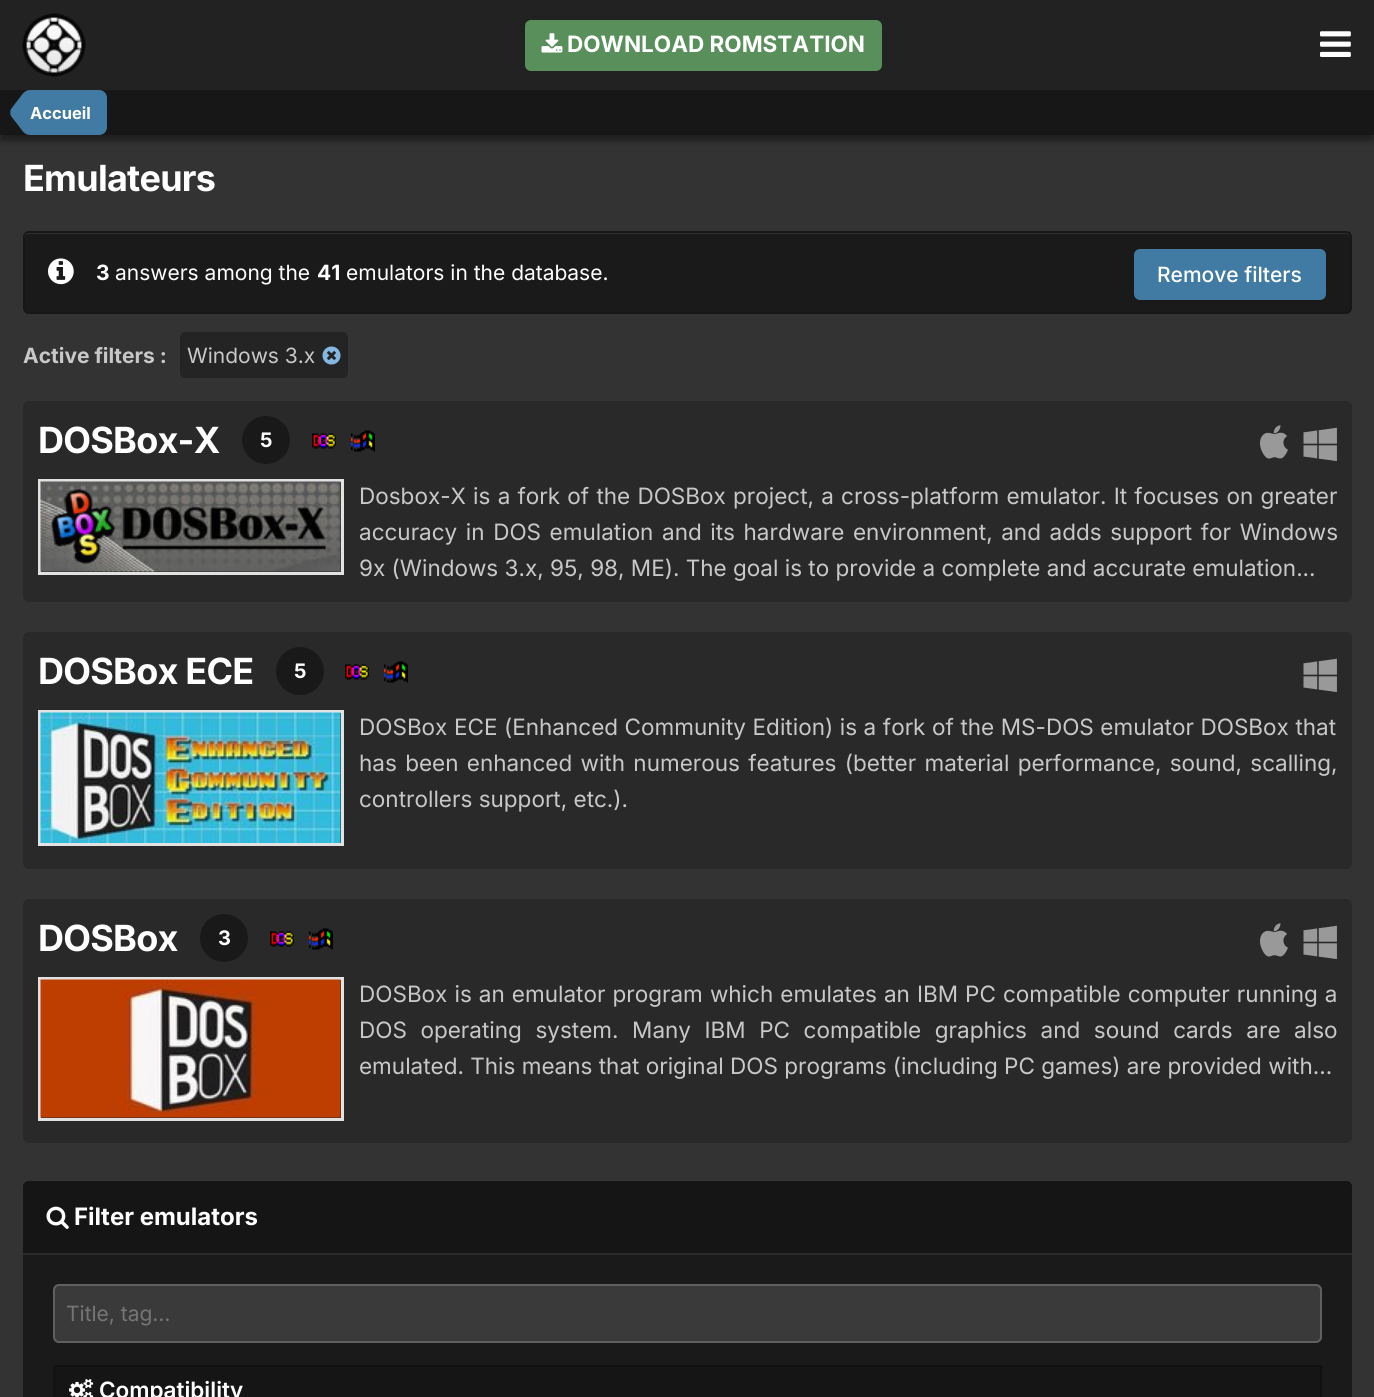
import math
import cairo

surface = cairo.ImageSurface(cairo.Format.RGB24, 1374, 1397)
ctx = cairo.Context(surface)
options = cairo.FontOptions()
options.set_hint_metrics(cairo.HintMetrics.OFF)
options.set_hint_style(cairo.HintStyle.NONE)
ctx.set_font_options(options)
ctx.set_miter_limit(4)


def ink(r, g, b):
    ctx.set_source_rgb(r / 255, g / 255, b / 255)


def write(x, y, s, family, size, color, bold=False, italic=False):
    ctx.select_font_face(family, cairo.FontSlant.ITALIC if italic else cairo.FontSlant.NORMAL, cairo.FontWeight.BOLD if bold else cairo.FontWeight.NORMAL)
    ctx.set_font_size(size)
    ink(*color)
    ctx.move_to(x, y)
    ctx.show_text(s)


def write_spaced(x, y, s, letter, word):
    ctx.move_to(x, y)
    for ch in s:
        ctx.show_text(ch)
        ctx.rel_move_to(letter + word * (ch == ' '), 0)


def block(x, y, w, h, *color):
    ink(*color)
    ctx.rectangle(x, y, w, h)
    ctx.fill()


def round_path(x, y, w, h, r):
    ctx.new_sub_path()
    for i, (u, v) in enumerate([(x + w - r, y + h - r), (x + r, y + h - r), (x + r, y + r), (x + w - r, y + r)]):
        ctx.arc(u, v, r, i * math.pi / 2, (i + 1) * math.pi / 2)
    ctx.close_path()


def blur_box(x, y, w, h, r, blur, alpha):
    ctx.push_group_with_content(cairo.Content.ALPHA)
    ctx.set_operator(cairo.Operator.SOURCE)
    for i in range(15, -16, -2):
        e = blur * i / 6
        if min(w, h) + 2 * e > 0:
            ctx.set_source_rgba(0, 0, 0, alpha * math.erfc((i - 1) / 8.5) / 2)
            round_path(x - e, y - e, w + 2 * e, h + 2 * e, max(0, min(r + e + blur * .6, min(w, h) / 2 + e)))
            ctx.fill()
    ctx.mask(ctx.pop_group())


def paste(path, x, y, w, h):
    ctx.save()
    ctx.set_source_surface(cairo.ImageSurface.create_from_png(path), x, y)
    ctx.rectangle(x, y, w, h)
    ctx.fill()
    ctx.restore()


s1 = dict(family="Inter", size=22.5, color=(255, 255, 255), bold=True)
s2 = dict(family="Inter", size=16.5, color=(255, 255, 255), bold=True)
s3 = dict(family="Inter", size=21, color=(255, 255, 255), bold=True)
s4 = dict(family="Inter", size=21, color=(255, 255, 255))
s5 = dict(family="Inter Medium", size=21, color=(255, 255, 255))
s6 = dict(family="Inter", size=21, color=(200, 200, 200), bold=True)
s7 = dict(family="Inter", size=21, color=(200, 200, 200))
s8 = dict(family="Inter", size=20, color=(255, 255, 255), bold=True)
s9 = dict(family="Inter", size=22.5, color=(200, 200, 200))
s10 = dict(family="Inter", size=24, color=(255, 255, 255), bold=True)
s11 = dict(family="Inter", size=21, color=(117, 117, 117))
s12 = dict(family="Inter SemiBold", size=22.5, color=(255, 255, 255))

ink(51, 51, 51)
ctx.paint()
block(0, 0, 1374, 90, 34, 34, 34)
paste("pic1.png", 22, 13, 64, 64)
ink(89, 143, 91)
round_path(525, 20, 357, 51, 6)
ctx.fill()
paste("pic2.png", 541, 33, 22, 20)
write(567, 52, "DOWNLOAD ROMSTATION", **s1)
paste("pic3.png", 1320, 31, 31, 26)
ink(0, 0, 0)
blur_box(0, 96, 1374, 45, 0, 3, 0.4)
block(0, 90, 1374, 45, 23, 23, 23)
ink(65, 123, 163)
ctx.new_path()
ctx.move_to(30, 90)
ctx.line_to(99, 90)
ctx.curve_to(103.5, 90, 107, 93.5, 107, 98)
ctx.line_to(107, 127)
ctx.curve_to(107, 131.5, 103.5, 135, 99, 135)
ctx.line_to(30, 135)
ctx.close_path()
ctx.fill()
ctx.new_path()
ctx.move_to(39, 96)
ctx.line_to(42, 100)
ctx.curve_to(47, 107, 47, 118, 42, 125)
ctx.line_to(39, 129)
ctx.curve_to(34, 137, 26, 137, 21, 129)
ctx.line_to(11, 116)
ctx.curve_to(10, 114, 10, 111, 11, 109)
ctx.line_to(21, 96)
ctx.curve_to(26, 88, 34, 88, 39, 96)
ctx.close_path()
ctx.fill()
write(30, 119, "Accueil", **s2)
ctx.set_font_size(36)
write_spaced(23, 191, "Emulateurs", -0.75, 0)
ink(26, 26, 26)
round_path(23, 231, 1329, 83, 6)
ctx.fill()
ink(49, 49, 49)
ctx.new_path()
ctx.move_to(28, 234)
ctx.line_to(1346, 234)
ctx.curve_to(1348, 234, 1350, 236, 1350, 238)
ctx.curve_to(1350, 235, 1348, 233, 1345, 233)
ctx.line_to(29, 233)
ctx.curve_to(26, 233, 24, 235, 24, 238)
ctx.curve_to(24, 236, 26, 234, 28, 234)
ctx.close_path()
ctx.fill()
round_path(24, 232, 1327, 81, 5)
ctx.set_source_rgba(0, 0, 0, 0.1)
ctx.stroke()
paste("pic4.png", 48, 258, 26, 27)
write(96, 280, "3", **s3)
write(115, 280, "answers among the", **s4)
write(317, 280, "41", **s3)
write(346, 280, "emulators in the database.", **s4)
ink(65, 123, 163)
round_path(1134, 249, 192, 51, 6)
ctx.fill()
write(1157, 282, "Remove filters", **s5)
write(23, 363, "Active filters :", **s6)
ink(36, 36, 36)
round_path(180, 332, 168, 46, 5)
ctx.fill()
write(187, 363, "Windows 3.x", **s7)
paste("pic5.png", 322, 346, 19, 19)
ink(41, 41, 41)
round_path(23, 401, 1329, 201, 6)
ctx.fill()
ctx.select_font_face("Inter", cairo.FontSlant.NORMAL, cairo.FontWeight.BOLD)
ctx.set_font_size(36)
ink(255, 255, 255)
write_spaced(38, 453, "DOSBox-X", -0.75, 0)
ink(25, 25, 25)
ctx.new_path()
ctx.arc(266, 440, 24, 0, 2 * math.pi)
ctx.fill()
write(260, 447, "5", **s8)
paste("pic6.png", 312, 433, 24, 16)
paste("pic7.png", 351, 430, 24, 22)
paste("pic8.png", 1260, 425, 28, 34)
paste("pic9.png", 1303, 427, 34, 35)
ctx.rectangle(39.5, 480.5, 303, 93)
ink(226, 226, 226)
ctx.set_line_width(3)
ctx.stroke()
paste("pic10.png", 40, 481, 301, 91)
ctx.select_font_face("Inter")
ctx.set_font_size(22.5)
ink(200, 200, 200)
write_spaced(359, 504, "Dosbox-X is a fork of the DOSBox project, a cross-platform emulator. It focuses on greater", 0, 0.9)
write_spaced(359, 540, "accuracy in DOS emulation and its hardware environment, and adds support for Windows", 0, 2.25)
write(359, 576, "9x (Windows 3.x, 95, 98, ME). The goal is to provide a complete and accurate emulation...", **s9)
ink(41, 41, 41)
round_path(23, 632, 1329, 237, 6)
ctx.fill()
ctx.select_font_face("Inter", cairo.FontSlant.NORMAL, cairo.FontWeight.BOLD)
ctx.set_font_size(36)
ink(255, 255, 255)
write_spaced(38, 684, "DOSBox ECE", -0.75, 0)
ink(25, 25, 25)
ctx.new_path()
ctx.arc(300, 671, 24, 0, 2 * math.pi)
ctx.fill()
write(294, 678, "5", **s8)
paste("pic6.png", 345, 664, 24, 16)
paste("pic7.png", 384, 661, 24, 22)
paste("pic9.png", 1303, 658, 34, 35)
ctx.rectangle(39.5, 711.5, 303, 133)
ink(226, 226, 226)
ctx.stroke()
paste("pic11.png", 40, 712, 301, 131)
ctx.select_font_face("Inter")
ctx.set_font_size(22.5)
ink(200, 200, 200)
write_spaced(359, 735, "DOSBox ECE (Enhanced Community Edition) is a fork of the MS-DOS emulator DOSBox that", 0, 0.25)
write_spaced(359, 771, "has been enhanced with numerous features (better material performance, sound, scalling,", 0, 2)
write(359, 807, "controllers support, etc.).", **s9)
ink(41, 41, 41)
round_path(23, 899, 1329, 244, 6)
ctx.fill()
ctx.select_font_face("Inter", cairo.FontSlant.NORMAL, cairo.FontWeight.BOLD)
ctx.set_font_size(36)
ink(255, 255, 255)
write_spaced(38, 951, "DOSBox", -0.75, 0)
ink(25, 25, 25)
ctx.new_path()
ctx.arc(224, 938, 24, 0, 2 * math.pi)
ctx.fill()
write(218, 945, "3", **s8)
paste("pic12.png", 270, 931, 24, 16)
paste("pic7.png", 309, 928, 24, 22)
paste("pic8.png", 1260, 923, 28, 34)
paste("pic9.png", 1303, 925, 34, 35)
ctx.rectangle(39.5, 978.5, 303, 141)
ink(226, 226, 226)
ctx.stroke()
paste("pic13.png", 40, 979, 301, 139)
ctx.select_font_face("Inter")
ctx.set_font_size(22.5)
ink(200, 200, 200)
write_spaced(359, 1002, "DOSBox is an emulator program which emulates an IBM PC compatible computer running a", 0, 0.75)
write_spaced(359, 1038, "DOS operating system. Many IBM PC compatible graphics and sound cards are also", 0, 7.25)
write(359, 1074, "emulated. This means that original DOS programs (including PC games) are provided with...", **s9)
ink(26, 26, 26)
round_path(23, 1181, 1329, 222, 6)
ctx.fill()
block(23, 1254, 1329, 1, 45, 45, 45)
ink(21, 21, 21)
ctx.new_path()
ctx.move_to(29, 1181)
ctx.line_to(1346, 1181)
ctx.curve_to(1349.5, 1181, 1352, 1183.5, 1352, 1187)
ctx.line_to(1352, 1254)
ctx.line_to(23, 1254)
ctx.line_to(23, 1187)
ctx.curve_to(23, 1183.5, 25.5, 1181, 29, 1181)
ctx.close_path()
ctx.fill()
block(23, 1253, 1329, 1, 41, 41, 41)
paste("pic14.png", 46, 1206, 23, 23)
write(74, 1225, "Filter emulators", **s10)
ink(58, 58, 58)
round_path(53, 1284, 1269, 59, 6)
ctx.fill()
round_path(54, 1285, 1267, 57, 5)
ctx.set_source_rgba(0.6, 0.6, 0.6, 0.4)
ctx.set_line_width(2)
ctx.stroke()
write(66, 1321, "Title, tag…", **s11)
ink(21, 21, 21)
ctx.rectangle(54, 1366, 1267, 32)
ctx.fill_preserve()
ink(17, 17, 17)
ctx.stroke()
paste("pic15.png", 69, 1379, 25, 18)
write(99, 1398, "Compatibility", **s12)
surface.write_to_png("screenshot.png")
